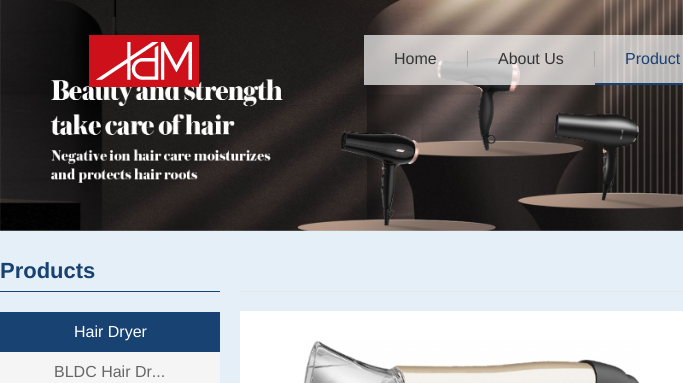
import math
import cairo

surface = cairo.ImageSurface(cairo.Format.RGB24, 683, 383)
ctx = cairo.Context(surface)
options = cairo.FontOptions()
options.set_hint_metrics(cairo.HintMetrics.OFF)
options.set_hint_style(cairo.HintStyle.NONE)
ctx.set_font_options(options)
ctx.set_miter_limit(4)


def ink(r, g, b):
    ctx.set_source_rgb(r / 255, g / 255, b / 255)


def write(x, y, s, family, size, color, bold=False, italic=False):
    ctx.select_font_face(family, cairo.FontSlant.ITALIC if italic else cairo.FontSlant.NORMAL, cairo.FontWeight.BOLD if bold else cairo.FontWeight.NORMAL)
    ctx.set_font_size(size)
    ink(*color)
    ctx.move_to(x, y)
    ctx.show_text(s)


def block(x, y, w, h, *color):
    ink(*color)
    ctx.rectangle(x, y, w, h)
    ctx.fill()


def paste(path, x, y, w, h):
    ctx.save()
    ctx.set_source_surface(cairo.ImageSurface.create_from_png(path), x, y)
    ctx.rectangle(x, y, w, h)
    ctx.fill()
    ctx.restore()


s1 = dict(family="Liberation Sans", size=16, color=(52, 52, 52))
s2 = dict(family="Liberation Sans", size=16, color=(24, 66, 114))
s3 = dict(family="Liberation Sans", size=22, color=(24, 66, 114), bold=True)
s4 = dict(family="Liberation Sans", size=16, color=(255, 255, 255))
s5 = dict(family="Liberation Sans", size=16, color=(102, 102, 102))

ink(229, 239, 248)
ctx.paint()
paste("pic1.png", 0, 0, 683, 231)
paste("pic2.png", 89, 35, 110, 52)
ctx.set_source_rgba(1, 1, 1, 0.68)
ctx.rectangle(364, 35, 319, 50)
ctx.fill()
block(467, 51, 1, 16, 169, 169, 169)
write(394, 64, "Home", **s1)
block(594, 51, 1, 16, 169, 169, 169)
write(498, 64, "About Us", **s1)
block(595, 83, 88, 2, 24, 66, 114)
write(625, 64, "Product", **s2)
block(0, 291, 220, 1, 24, 66, 114)
write(0, 278, "Products", **s3)
block(0, 312, 220, 40, 24, 66, 114)
write(74, 337, "Hair Dryer", **s4)
block(0, 352, 220, 31, 245, 245, 245)
write(54, 377, "BLDC Hair Dr...", **s5)
block(240, 291, 443, 1, 230, 230, 230)
block(240, 311, 443, 72, 255, 255, 255)
paste("pic3.png", 303, 340, 337, 43)
surface.write_to_png("screenshot.png")
